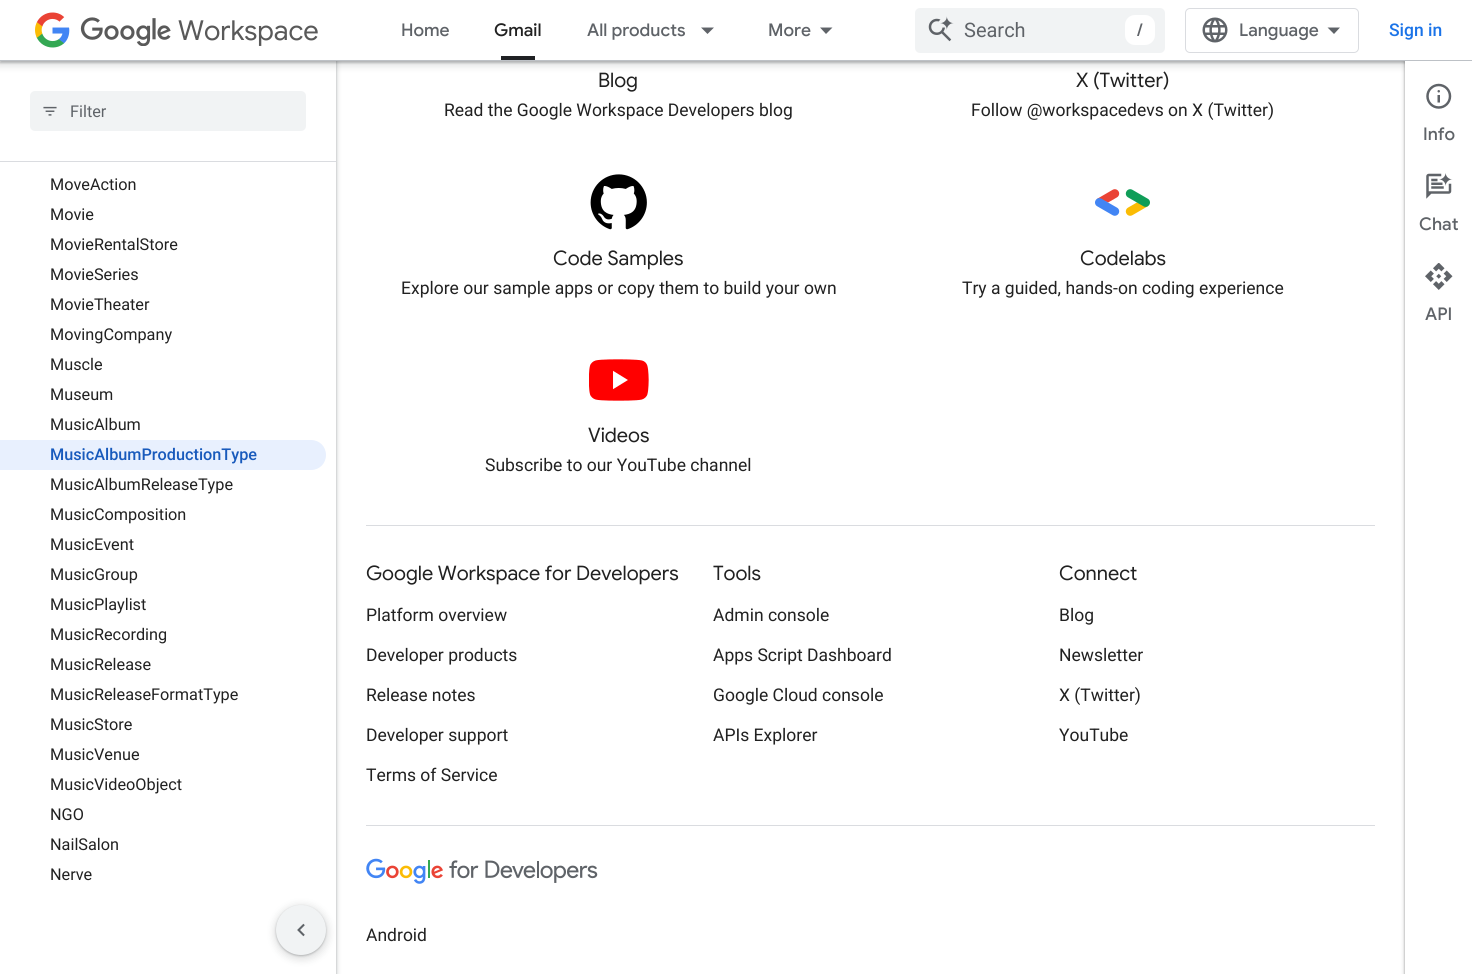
import math
import cairo

surface = cairo.ImageSurface(cairo.Format.RGB24, 1472, 974)
ctx = cairo.Context(surface)
options = cairo.FontOptions()
options.set_hint_metrics(cairo.HintMetrics.OFF)
options.set_hint_style(cairo.HintStyle.NONE)
ctx.set_font_options(options)
ctx.set_miter_limit(4)


def ink(r, g, b):
    ctx.set_source_rgb(r / 255, g / 255, b / 255)


def write(x, y, s, family, size, color, bold=False, italic=False):
    ctx.select_font_face(family, cairo.FontSlant.ITALIC if italic else cairo.FontSlant.NORMAL, cairo.FontWeight.BOLD if bold else cairo.FontWeight.NORMAL)
    ctx.set_font_size(size)
    ink(*color)
    ctx.move_to(x, y)
    ctx.show_text(s)


def block(x, y, w, h, *color):
    ink(*color)
    ctx.rectangle(x, y, w, h)
    ctx.fill()


def round_path(x, y, w, h, r):
    ctx.new_sub_path()
    for i, (u, v) in enumerate([(x + w - r, y + h - r), (x + r, y + h - r), (x + r, y + r), (x + w - r, y + r)]):
        ctx.arc(u, v, r, i * math.pi / 2, (i + 1) * math.pi / 2)
    ctx.close_path()


def blur_box(x, y, w, h, r, blur, alpha):
    ctx.push_group_with_content(cairo.Content.ALPHA)
    ctx.set_operator(cairo.Operator.SOURCE)
    for i in range(15, -16, -2):
        e = blur * i / 6
        if min(w, h) + 2 * e > 0:
            ctx.set_source_rgba(0, 0, 0, alpha * math.erfc((i - 1) / 8.5) / 2)
            round_path(x - e, y - e, w + 2 * e, h + 2 * e, max(0, min(r + e + blur * .6, min(w, h) / 2 + e)))
            ctx.fill()
    ctx.mask(ctx.pop_group())


def paste(path, x, y, w, h):
    ctx.save()
    ctx.set_source_surface(cairo.ImageSurface.create_from_png(path), x, y)
    ctx.rectangle(x, y, w, h)
    ctx.fill()
    ctx.restore()


s1 = dict(family="Google Sans", size=27.5, color=(89, 89, 89))
s2 = dict(family="Google Sans Medium", size=17.5, color=(95, 99, 104))
s3 = dict(family="Google Sans Medium", size=17.5, color=(33, 33, 33))
s4 = dict(family="Roboto", size=20, color=(95, 99, 104))
s5 = dict(family="Roboto Medium", size=17.5, color=(26, 115, 232))
s6 = dict(family="Roboto", size=16.25, color=(95, 99, 104))
s7 = dict(family="Roboto", size=16.25, color=(33, 33, 33))
s8 = dict(family="Roboto Medium", size=16.25, color=(24, 90, 188))
s9 = dict(family="Google Sans", size=20, color=(33, 33, 33))
s10 = dict(family="Roboto", size=17.5, color=(33, 33, 33))

ink(255, 255, 255)
ctx.paint()
ink(60, 64, 67)
blur_box(-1, 0, 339, 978, 0, 2, 0.15)
blur_box(0, 1, 336, 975, 0, 1, 0.3)
block(0, 61, 336, 913, 255, 255, 255)
ink(60, 64, 67)
blur_box(-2, -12, 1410, 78, 0, 4, 0.15)
blur_box(0, -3, 1405, 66, 0, 1, 0.3)
ink(0, 0, 0)
blur_box(1404, 60, 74, 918, 0, 2, 0.15)
blur_box(1405, 61, 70, 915, 0, 1, 0.3)
block(0, 0, 1472, 60, 255, 255, 255)
block(0, 60, 1472, 1, 189, 193, 198)
paste("pic1.png", 35, 12, 35, 36)
paste("pic2.png", 80, 17, 91, 29)
write(178, 40, "Workspace", **s1)
write(401, 36, "Home", **s2)
write(494, 36, "Gmail", **s3)
block(501, 56, 34, 4, 32, 33, 36)
write(587, 36, "All products", **s2)
ctx.new_path()
ctx.move_to(701, 27.5)
ctx.line_to(714, 27.5)
ctx.line_to(707.5, 34)
ctx.close_path()
ctx.fill()
write(768, 36, "More", **s2)
ctx.new_path()
ctx.move_to(820, 27.5)
ctx.line_to(832.5, 27.5)
ctx.line_to(826, 34)
ctx.close_path()
ctx.fill()
ink(241, 243, 244)
round_path(915, 8, 250, 45, 5)
ctx.fill()
paste("pic3.png", 928, 16, 26, 26)
write(964, 37, "Search", **s4)
ink(255, 255, 255)
round_path(1125, 15, 30, 30, 10)
ctx.fill()
write(1137, 36, "/", **s2)
round_path(1185.5, 8.5, 173, 44, 4.5)
ink(218, 220, 224)
ctx.set_line_width(1)
ctx.stroke()
paste("pic4.png", 1202, 17, 26, 26)
write(1239, 36, "Language", **s2)
ctx.new_path()
ctx.move_to(1334, 34)
ctx.line_to(1327.5, 27.5)
ctx.line_to(1340, 27.5)
ctx.close_path()
ctx.fill()
write(1389, 36, "Sign in", **s5)
block(0, 161, 336, 1, 218, 220, 224)
ink(241, 243, 244)
round_path(30, 91, 276, 40, 5)
ctx.fill()
paste("pic5.png", 43, 106, 14, 10)
write(70, 117, "Filter", **s6)
write(50, 190, "MoveAction", **s7)
write(50, 220, "Movie", **s7)
write(50, 250, "MovieRentalStore", **s7)
write(50, 280, "MovieSeries", **s7)
write(50, 310, "MovieTheater", **s7)
write(50, 340, "MovingCompany", **s7)
write(50, 370, "Muscle", **s7)
write(50, 400, "Museum", **s7)
write(50, 430, "MusicAlbum", **s7)
ink(232, 240, 254)
ctx.new_path()
ctx.move_to(0, 440)
ctx.line_to(311, 440)
ctx.curve_to(319.5, 440, 326, 446.5, 326, 455)
ctx.curve_to(326, 463.5, 319.5, 470, 311, 470)
ctx.line_to(0, 470)
ctx.close_path()
ctx.fill()
write(50, 460, "MusicAlbumProductionType", **s8)
write(50, 490, "MusicAlbumReleaseType", **s7)
write(50, 520, "MusicComposition", **s7)
write(50, 550, "MusicEvent", **s7)
write(50, 580, "MusicGroup", **s7)
write(50, 610, "MusicPlaylist", **s7)
write(50, 640, "MusicRecording", **s7)
write(50, 670, "MusicRelease", **s7)
write(50, 700, "MusicReleaseFormatType", **s7)
write(50, 730, "MusicStore", **s7)
write(50, 760, "MusicVenue", **s7)
write(50, 790, "MusicVideoObject", **s7)
write(50, 820, "NGO", **s7)
write(50, 850, "NailSalon", **s7)
write(50, 880, "Nerve", **s7)
block(366, 525, 1009, 1, 218, 220, 224)
write(598, 87, "Blog", **s9)
write(444, 116, "Read the Google Workspace Developers blog", **s10)
write(1076, 87, "X (Twitter)", **s9)
write(971, 116, "Follow @workspacedevs on X (Twitter)", **s10)
paste("pic6.png", 590, 174, 57, 56)
write(553, 265, "Code Samples", **s9)
write(401, 294, "Explore our sample apps or copy them to build your own", **s10)
paste("pic7.png", 1095, 189, 55, 27)
write(1080, 265, "Codelabs", **s9)
write(962, 294, "Try a guided, hands-on coding experience", **s10)
paste("pic8.png", 589, 359, 60, 42)
write(588, 442, "Videos", **s9)
write(485, 471, "Subscribe to our YouTube channel", **s10)
block(1405, 61, 67, 913, 255, 255, 255)
paste("pic9.png", 1426, 83, 26, 26)
write(1423, 140, "Info", **s2)
paste("pic10.png", 1426, 173, 27, 26)
write(1419, 230, "Chat", **s2)
paste("pic11.png", 1425, 263, 28, 27)
write(1425, 320, "API", **s2)
block(366, 825, 1009, 1, 218, 220, 224)
write(366, 580, "Google Workspace for Developers", **s9)
write(366, 621, "Platform overview", **s10)
write(366, 661, "Developer products", **s10)
write(366, 701, "Release notes", **s10)
write(366, 741, "Developer support", **s10)
write(366, 781, "Terms of Service", **s10)
write(713, 580, "Tools", **s9)
write(713, 621, "Admin console", **s10)
write(713, 661, "Apps Script Dashboard", **s10)
write(713, 701, "Google Cloud console", **s10)
write(713, 741, "APIs Explorer", **s10)
write(1059, 580, "Connect", **s9)
write(1059, 621, "Blog", **s10)
write(1059, 661, "Newsletter", **s10)
write(1059, 701, "X (Twitter)", **s10)
write(1059, 741, "YouTube", **s10)
paste("pic12.png", 366, 858, 232, 26)
write(366, 941, "Android", **s10)
ink(60, 64, 67)
blur_box(274, 905, 55, 55, 27.5, 4, 0.15)
blur_box(276, 906, 50, 50, 25, 1, 0.3)
ink(241, 243, 244)
ctx.arc(301, 930, 25, 0, 2 * math.pi)
ctx.fill()
paste("pic13.png", 297, 923, 8, 14)
surface.write_to_png("screenshot.png")
